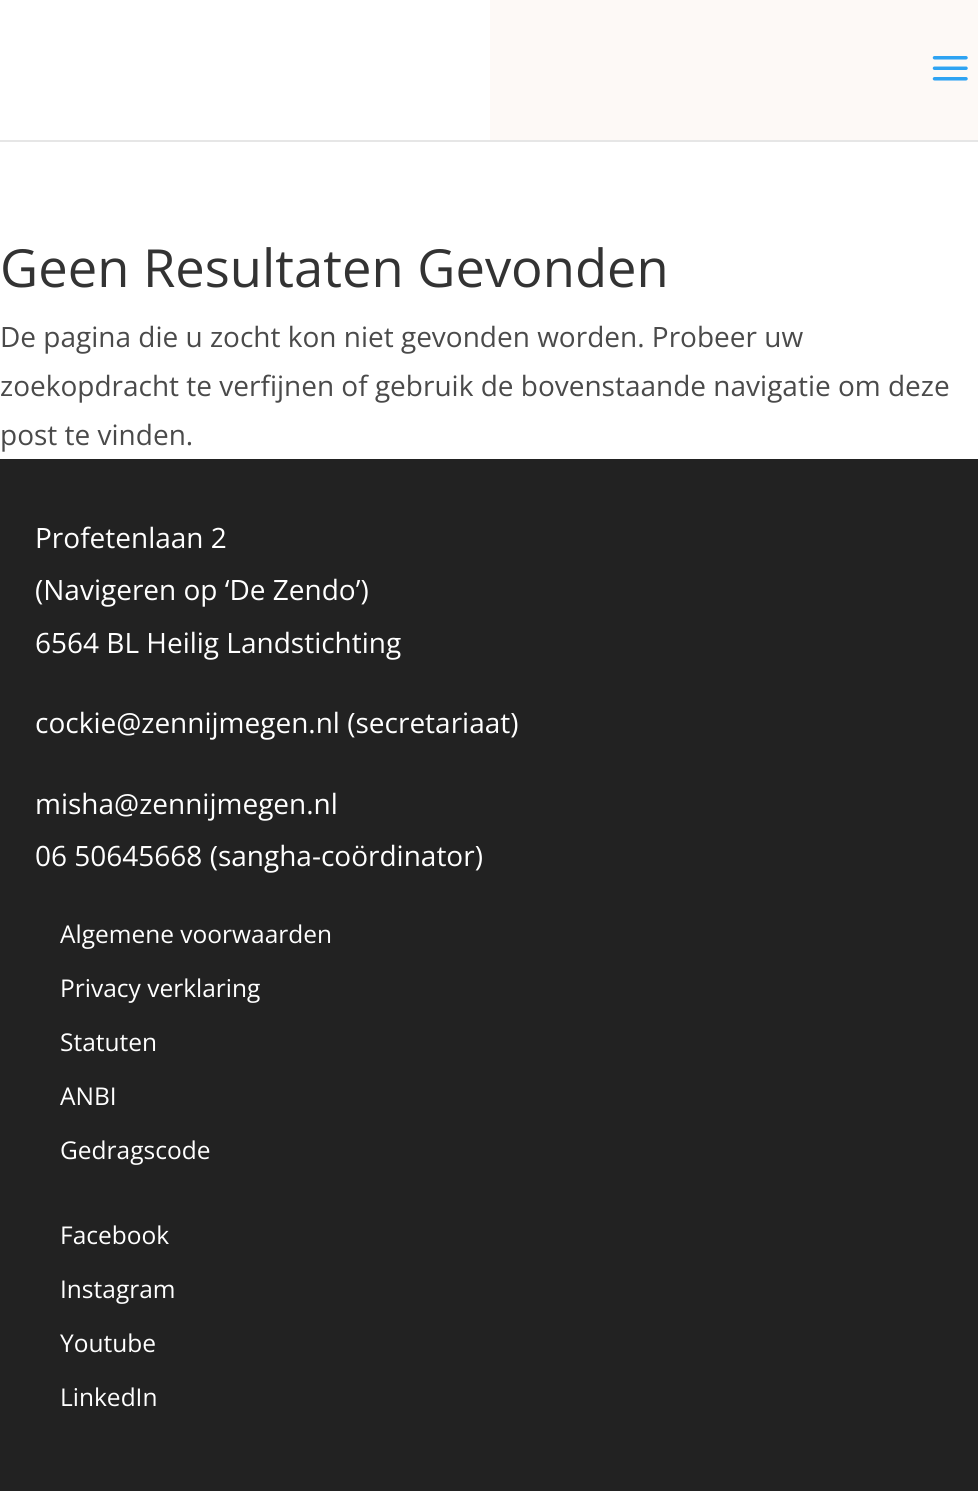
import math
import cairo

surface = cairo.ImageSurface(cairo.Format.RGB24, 978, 1491)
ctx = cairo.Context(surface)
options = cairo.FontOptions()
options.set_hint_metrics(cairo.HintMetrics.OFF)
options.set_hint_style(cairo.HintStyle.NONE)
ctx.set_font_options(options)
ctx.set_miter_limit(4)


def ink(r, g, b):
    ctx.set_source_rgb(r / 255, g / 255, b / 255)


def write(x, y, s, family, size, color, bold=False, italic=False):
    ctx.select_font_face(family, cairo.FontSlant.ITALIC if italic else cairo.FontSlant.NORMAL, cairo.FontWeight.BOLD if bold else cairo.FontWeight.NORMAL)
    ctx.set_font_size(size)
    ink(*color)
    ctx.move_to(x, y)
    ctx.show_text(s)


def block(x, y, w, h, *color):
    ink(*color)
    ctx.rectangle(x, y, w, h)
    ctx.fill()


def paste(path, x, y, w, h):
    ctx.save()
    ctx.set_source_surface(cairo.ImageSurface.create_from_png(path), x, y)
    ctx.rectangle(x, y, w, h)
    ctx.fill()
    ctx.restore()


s1 = dict(family="Open Sans", size=52.5, color=(51, 51, 51))
s2 = dict(family="Open Sans", size=28, color=(74, 74, 74))
s3 = dict(family="Open Sans", size=28, color=(255, 255, 255))
s4 = dict(family="Open Sans", size=24.5, color=(255, 255, 255))

ink(255, 255, 255)
ctx.paint()
block(0, 140, 978, 2, 230, 230, 230)
block(490, 0, 488, 140, 253, 249, 246)
paste("pic1.png", 932, 56, 36, 25)
write(0, 287, "Geen Resultaten Gevonden", **s1)
write(0, 347, "De pagina die u zocht kon niet gevonden worden. Probeer uw", **s2)
write(0, 396, "zoekopdracht te verfijnen of gebruik de bovenstaande navigatie om deze", **s2)
write(0, 445, "post te vinden.", **s2)
block(0, 459, 978, 1032, 34, 34, 34)
write(35, 548, "Profetenlaan 2", **s3)
write(35, 600, "(Navigeren op ‘De Zendo’)", **s3)
write(35, 653, "6564 BL Heilig Landstichting", **s3)
write(35, 733, "cockie@zennijmegen.nl (secretariaat)", **s3)
write(35, 814, "misha@zennijmegen.nl", **s3)
write(35, 866, "06 50645668 (sangha-coördinator)", **s3)
write(60, 943, "Algemene voorwaarden", **s4)
write(60, 997, "Privacy verklaring", **s4)
write(60, 1051, "Statuten", **s4)
write(60, 1105, "ANBI", **s4)
write(60, 1159, "Gedragscode", **s4)
write(60, 1244, "Facebook", **s4)
write(60, 1298, "Instagram", **s4)
write(60, 1352, "Youtube", **s4)
write(60, 1406, "LinkedIn", **s4)
surface.write_to_png("screenshot.png")
